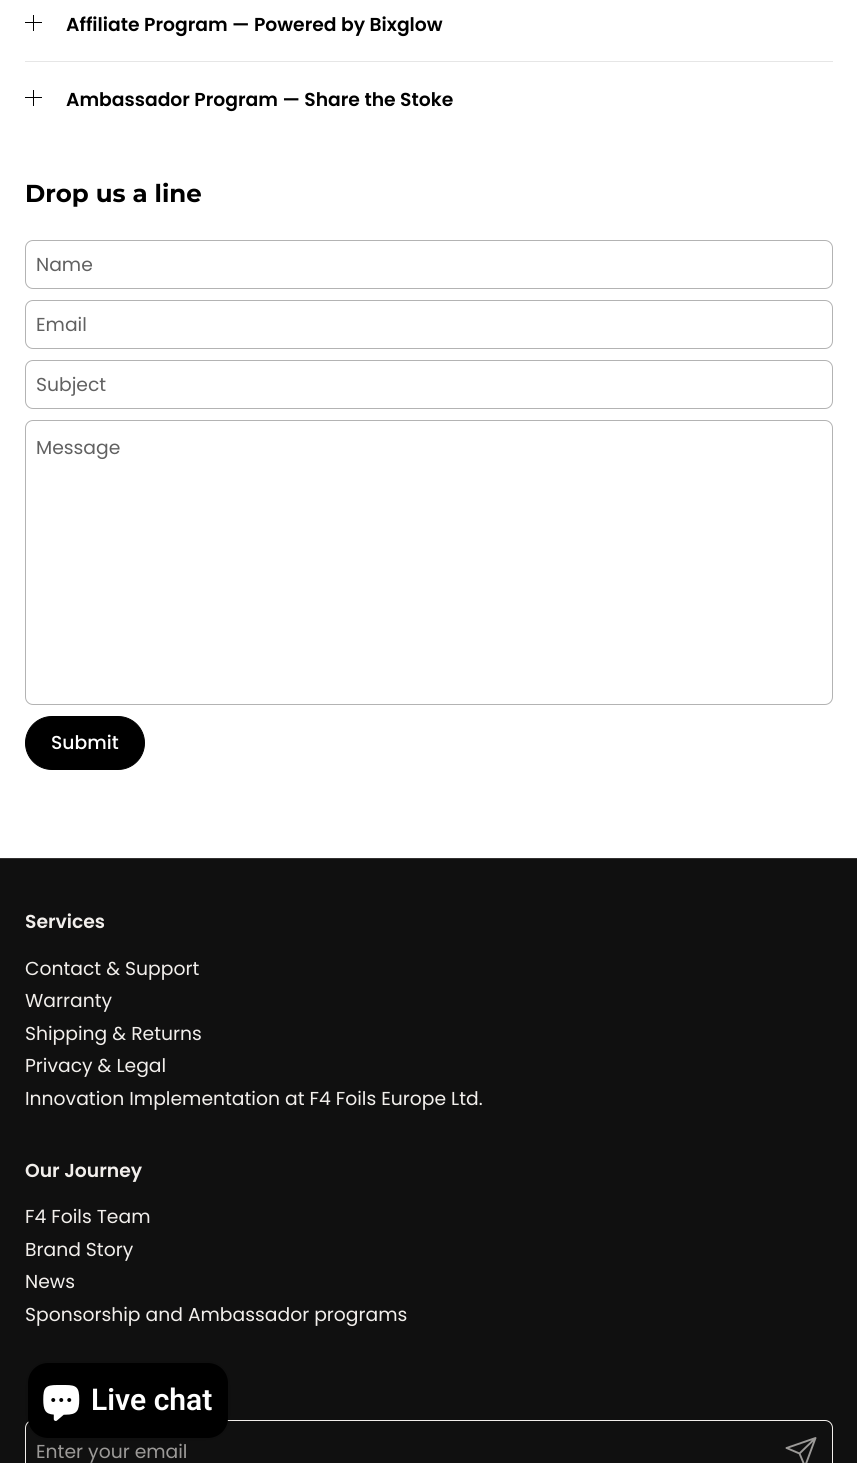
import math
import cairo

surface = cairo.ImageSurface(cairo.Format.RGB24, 857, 1463)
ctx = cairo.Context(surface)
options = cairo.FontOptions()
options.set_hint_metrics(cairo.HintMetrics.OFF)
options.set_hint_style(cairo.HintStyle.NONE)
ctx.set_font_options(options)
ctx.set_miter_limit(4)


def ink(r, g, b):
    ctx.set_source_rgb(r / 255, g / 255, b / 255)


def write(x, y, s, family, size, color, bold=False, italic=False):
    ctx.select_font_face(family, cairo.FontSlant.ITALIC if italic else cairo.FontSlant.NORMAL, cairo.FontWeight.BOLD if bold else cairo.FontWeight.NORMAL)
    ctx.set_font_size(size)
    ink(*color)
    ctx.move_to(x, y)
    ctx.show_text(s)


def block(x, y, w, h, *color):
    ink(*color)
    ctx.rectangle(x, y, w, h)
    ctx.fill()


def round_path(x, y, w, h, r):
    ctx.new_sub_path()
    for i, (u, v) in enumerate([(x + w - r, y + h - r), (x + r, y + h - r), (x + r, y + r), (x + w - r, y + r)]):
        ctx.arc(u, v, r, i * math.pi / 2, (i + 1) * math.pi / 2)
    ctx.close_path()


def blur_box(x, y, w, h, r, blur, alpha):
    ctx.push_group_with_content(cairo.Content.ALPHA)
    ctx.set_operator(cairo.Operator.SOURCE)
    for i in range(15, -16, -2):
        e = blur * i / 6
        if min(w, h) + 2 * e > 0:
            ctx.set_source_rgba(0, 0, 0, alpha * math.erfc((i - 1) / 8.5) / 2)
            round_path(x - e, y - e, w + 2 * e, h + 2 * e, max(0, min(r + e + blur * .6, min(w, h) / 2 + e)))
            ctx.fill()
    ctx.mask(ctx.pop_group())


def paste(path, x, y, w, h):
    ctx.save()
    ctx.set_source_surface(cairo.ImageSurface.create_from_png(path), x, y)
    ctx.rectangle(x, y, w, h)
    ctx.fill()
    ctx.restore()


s1 = dict(family="Poppins SemiBold", size=18.75, color=(0, 0, 0))
s2 = dict(family="Montserrat", size=24.5, color=(0, 0, 0), bold=True)
s3 = dict(family="Poppins", size=18.75, color=(97, 97, 97))
s4 = dict(family="Poppins Medium", size=18.75, color=(255, 255, 255))
s5 = dict(family="Poppins SemiBold", size=18.75, color=(242, 239, 236))
s6 = dict(family="Poppins", size=18.75, color=(242, 239, 236))
s7 = dict(family="Poppins", size=18.75, color=(156, 154, 152))
s8 = dict(family="Roboto SemiBold", size=30, color=(255, 255, 255))

ink(255, 255, 255)
ctx.paint()
block(33, 15, 1, 16, 0, 0, 0)
block(25, 22, 17, 1, 0, 0, 0)
write(66, 31, "Affiliate Program — Powered by Bixglow", **s1)
block(25, 61, 808, 1, 230, 230, 230)
block(33, 90, 1, 16, 0, 0, 0)
block(25, 97, 17, 1, 0, 0, 0)
write(66, 106, "Ambassador Program — Share the Stoke", **s1)
write(25, 202, "Drop us a line", **s2)
round_path(25.5, 240.5, 807, 48, 7.5)
ink(179, 179, 179)
ctx.set_line_width(1)
ctx.stroke()
write(36, 271, "Name", **s3)
round_path(25.5, 300.5, 807, 48, 7.5)
ink(179, 179, 179)
ctx.stroke()
write(36, 331, "Email", **s3)
round_path(25.5, 360.5, 807, 48, 7.5)
ink(179, 179, 179)
ctx.stroke()
write(36, 391, "Subject", **s3)
round_path(25.5, 420.5, 807, 284, 7.5)
ink(179, 179, 179)
ctx.stroke()
write(36, 454, "Message", **s3)
ink(0, 0, 0)
round_path(25.5, 716.5, 119, 53, 26.5)
ctx.fill_preserve()
ctx.stroke()
write(51, 749, "Submit", **s4)
block(0, 859, 857, 604, 16, 16, 16)
block(0, 858, 857, 1, 50, 49, 49)
write(25, 928, "Services", **s5)
write(25, 975, "Contact & Support", **s6)
write(25, 1007, "Warranty", **s6)
write(25, 1040, "Shipping & Returns", **s6)
write(25, 1072, "Privacy & Legal", **s6)
write(25, 1105, "Innovation Implementation at F4 Foils Europe Ltd.", **s6)
write(25, 1177, "Our Journey", **s5)
write(25, 1223, "F4 Foils Team", **s6)
write(25, 1256, "Brand Story", **s6)
write(25, 1288, "News", **s6)
write(25, 1321, "Sponsorship and Ambassador programs", **s6)
round_path(25.5, 1420.5, 807, 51, 7.5)
ctx.stroke()
write(36, 1458, "Enter your email", **s7)
ctx.new_path()
ctx.move_to(815.5, 1438)
ctx.line_to(799.5, 1453.5)
ctx.move_to(815.5, 1438)
ctx.line_to(805, 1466.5)
ctx.line_to(799.5, 1453.5)
ctx.line_to(786.5, 1448)
ctx.close_path()
ctx.set_line_width(1.9)
ctx.set_line_cap(cairo.LineCap.ROUND)
ctx.set_line_join(cairo.LineJoin.ROUND)
ctx.stroke()
ink(0, 0, 0)
blur_box(28, 1363, 200, 75, 20, 3, 0.15)
ink(0, 0, 0)
round_path(28, 1363, 200, 75, 20)
ctx.fill()
paste("pic1.png", 43, 1385, 37, 36)
write(91, 1410, "Live chat", **s8)
surface.write_to_png("screenshot.png")
